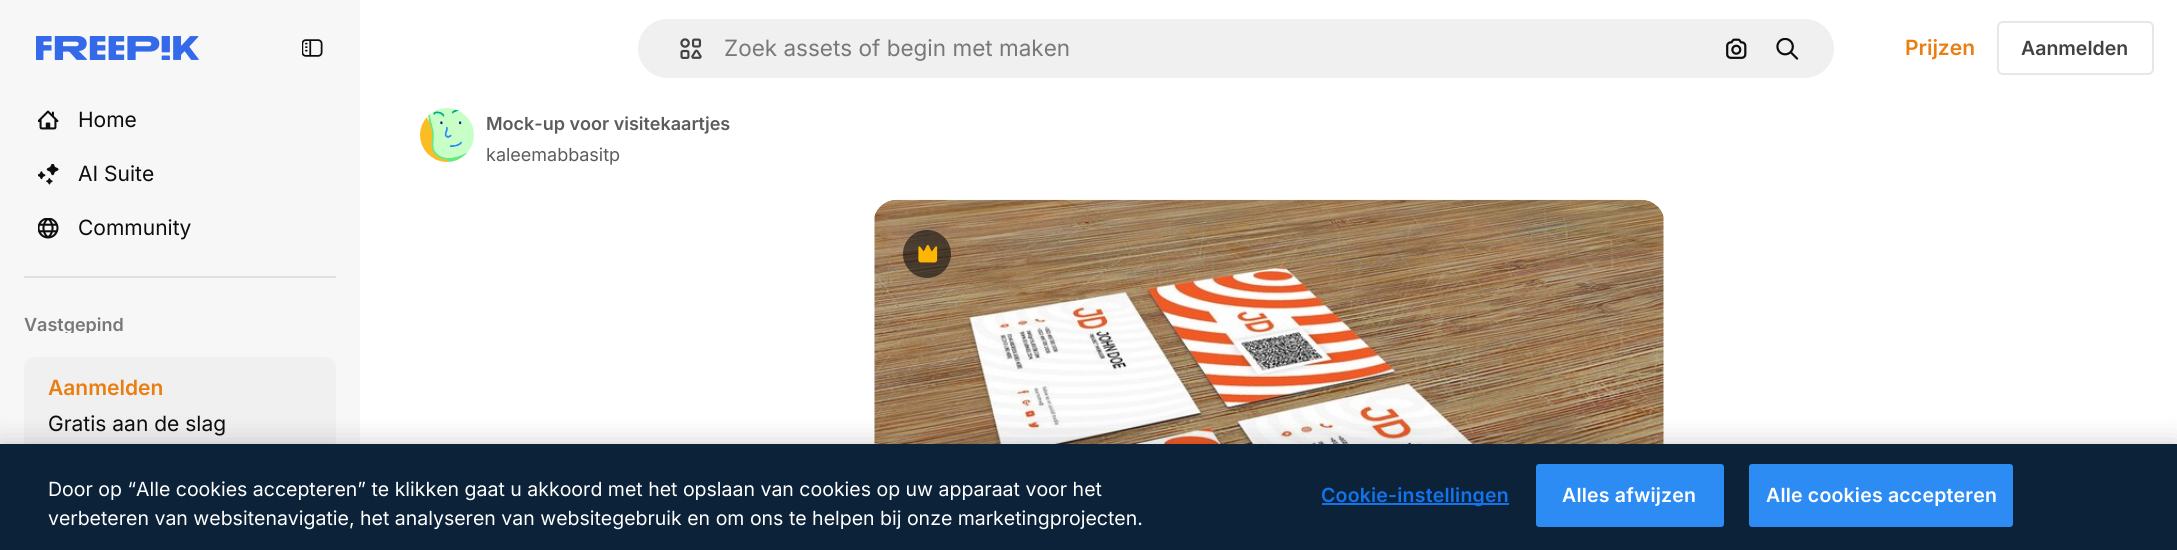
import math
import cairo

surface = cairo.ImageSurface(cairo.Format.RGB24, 2177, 550)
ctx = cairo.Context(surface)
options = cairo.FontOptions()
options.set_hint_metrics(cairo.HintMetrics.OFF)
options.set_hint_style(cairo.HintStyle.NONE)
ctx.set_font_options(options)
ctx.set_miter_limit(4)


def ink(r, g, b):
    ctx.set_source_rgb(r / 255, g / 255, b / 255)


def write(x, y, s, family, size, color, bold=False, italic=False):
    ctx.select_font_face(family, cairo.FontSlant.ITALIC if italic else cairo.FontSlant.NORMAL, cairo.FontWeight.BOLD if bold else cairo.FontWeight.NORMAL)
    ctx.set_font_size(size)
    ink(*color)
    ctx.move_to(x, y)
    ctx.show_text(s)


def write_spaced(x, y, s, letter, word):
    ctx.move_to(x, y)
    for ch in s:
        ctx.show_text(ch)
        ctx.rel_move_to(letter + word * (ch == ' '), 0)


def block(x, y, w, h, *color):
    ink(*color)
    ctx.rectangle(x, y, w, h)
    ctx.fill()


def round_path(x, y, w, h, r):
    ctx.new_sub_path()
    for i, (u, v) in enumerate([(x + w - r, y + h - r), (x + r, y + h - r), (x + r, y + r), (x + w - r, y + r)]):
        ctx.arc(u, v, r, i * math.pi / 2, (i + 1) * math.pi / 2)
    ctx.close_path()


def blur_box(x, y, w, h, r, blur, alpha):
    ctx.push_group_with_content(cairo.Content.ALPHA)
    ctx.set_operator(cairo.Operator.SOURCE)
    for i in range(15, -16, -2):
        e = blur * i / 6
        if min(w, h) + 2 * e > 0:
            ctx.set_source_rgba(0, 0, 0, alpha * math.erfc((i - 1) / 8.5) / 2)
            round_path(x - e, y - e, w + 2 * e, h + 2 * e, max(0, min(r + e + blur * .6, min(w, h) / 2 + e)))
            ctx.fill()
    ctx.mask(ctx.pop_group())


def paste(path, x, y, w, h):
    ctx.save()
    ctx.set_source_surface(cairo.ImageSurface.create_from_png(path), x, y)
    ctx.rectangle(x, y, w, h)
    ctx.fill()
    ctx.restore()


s1 = dict(family="Inter", size=21, color=(13, 13, 13))
s2 = dict(family="Inter SemiBold", size=18, color=(120, 120, 120))
s3 = dict(family="Inter SemiBold", size=21, color=(234, 126, 17))
s4 = dict(family="Inter", size=22.5, color=(120, 120, 120))
s5 = dict(family="Inter SemiBold", size=19.5, color=(66, 66, 66))
s6 = dict(family="Inter SemiBold", size=18, color=(92, 92, 92))
s7 = dict(family="Inter", size=18, color=(92, 92, 92))
s8 = dict(family="Inter", size=19.5, color=(255, 255, 255))

ink(255, 255, 255)
ctx.paint()
block(0, 0, 360, 444, 247, 247, 247)
paste("pic1.png", 36, 36, 163, 24)
paste("pic2.png", 302, 39, 21, 18)
paste("pic3.png", 38, 110, 21, 20)
write(78, 127, "Home", **s1)
paste("pic4.png", 38, 164, 21, 21)
write(78, 181, "AI Suite", **s1)
paste("pic5.png", 38, 218, 21, 21)
write(78, 235, "Community", **s1)
block(24, 276, 312, 2, 224, 224, 224)
ctx.save()
ctx.rectangle(24, 96, 324, 237)
ctx.clip()
write(24, 331, "Vastgepind", **s2)
ctx.restore()
ink(240, 240, 240)
round_path(24, 357, 312, 98, 12)
ctx.fill()
write(48, 395, "Aanmelden", **s3)
write(48, 431, "Gratis aan de slag", **s1)
ink(240, 240, 240)
round_path(637, 18, 1198, 61, 30.5)
ctx.fill_preserve()
ink(255, 255, 255)
ctx.stroke()
paste("pic6.png", 680, 38, 22, 21)
write(724, 56, "Zoek assets of begin met maken", **s4)
paste("pic7.png", 1726, 38, 21, 21)
paste("pic8.png", 1776, 38, 23, 22)
write(1905, 55, "Prijzen", **s3)
round_path(1998, 22, 155, 52, 5)
ink(231, 231, 231)
ctx.stroke()
write(2021, 55, "Aanmelden", **s5)
paste("pic9.png", 420, 108, 54, 54)
write(486, 130, "Mock-up voor visitekaartjes", **s6)
write(486, 161, "kaleemabbasitp", **s7)
paste("pic10.png", 874, 199, 790, 245)
ctx.set_source_rgba(0.051, 0.051, 0.051, 0.6)
ctx.arc(927, 254, 24, 0, 2 * math.pi)
ctx.fill()
paste("pic11.png", 918, 245, 20, 18)
ink(0, 0, 0)
blur_box(0, 444, 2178, 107, 0, 13.5, 0.2)
block(0, 444, 2177, 106, 11, 34, 57)
write(48, 496, "Door op “Alle cookies accepteren” te klikken gaat u akkoord met het opslaan van cookies op uw apparaat voor het", **s8)
write(48, 525, "verbeteren van websitenavigatie, het analyseren van websitegebruik en om ons te helpen bij onze marketingprojecten.", **s8)
block(1322, 503, 187, 2, 18, 115, 235)
ctx.select_font_face("Inter SemiBold")
write_spaced(1321, 502, "Cookie-instellingen", 0.2, 0)
ink(44, 140, 244)
round_path(1537, 465, 186, 61, 2)
ctx.fill_preserve()
ctx.stroke()
ink(255, 255, 255)
write_spaced(1562, 502, "Alles afwijzen", 0.2, 0)
ink(44, 140, 244)
round_path(1750, 465, 262, 61, 2)
ctx.fill_preserve()
ctx.stroke()
ink(255, 255, 255)
write_spaced(1766, 502, "Alle cookies accepteren", 0.2, 0)
surface.write_to_png("screenshot.png")
